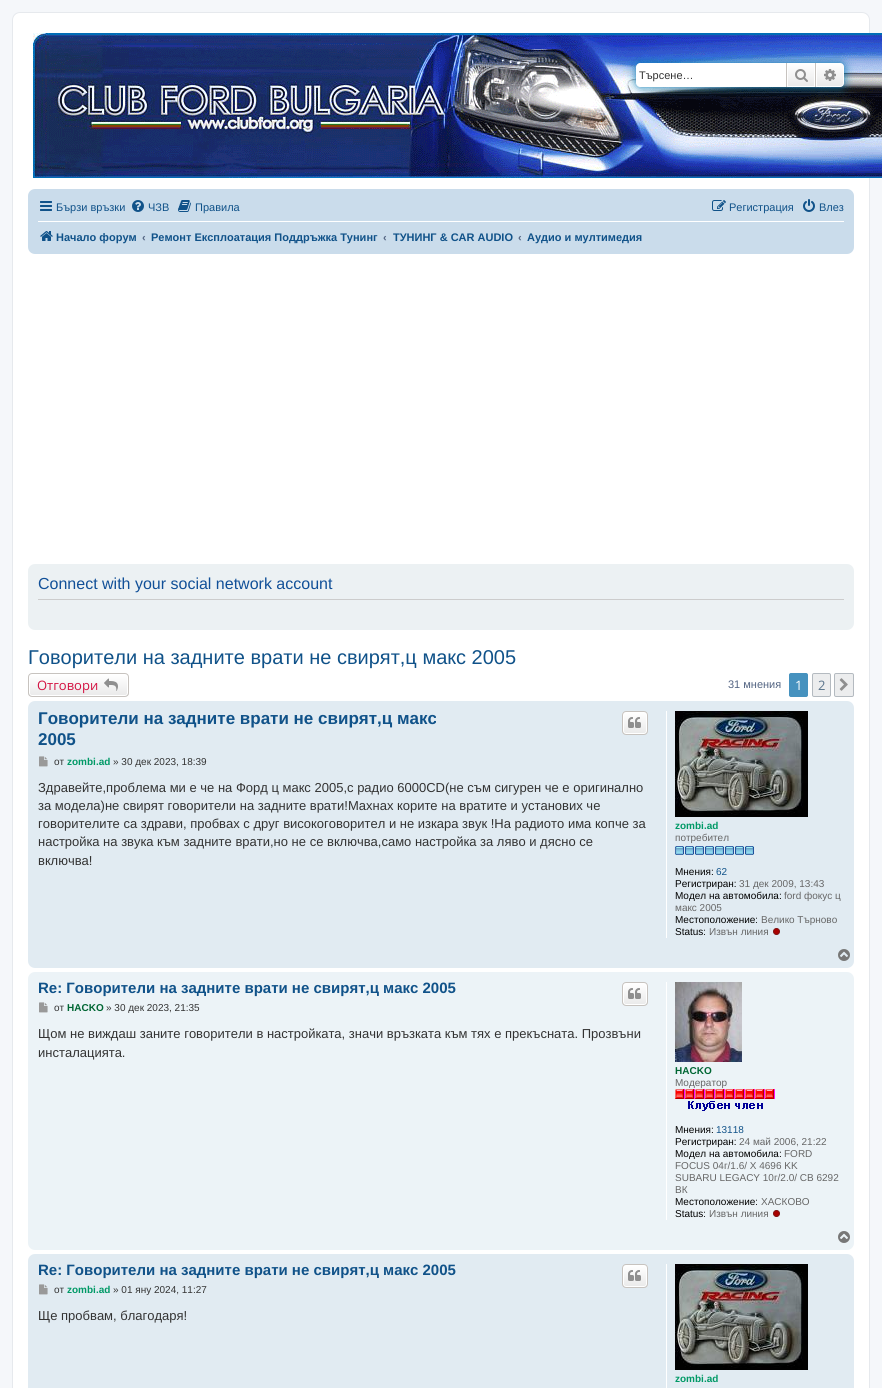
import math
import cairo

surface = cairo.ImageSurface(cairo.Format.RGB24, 882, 1388)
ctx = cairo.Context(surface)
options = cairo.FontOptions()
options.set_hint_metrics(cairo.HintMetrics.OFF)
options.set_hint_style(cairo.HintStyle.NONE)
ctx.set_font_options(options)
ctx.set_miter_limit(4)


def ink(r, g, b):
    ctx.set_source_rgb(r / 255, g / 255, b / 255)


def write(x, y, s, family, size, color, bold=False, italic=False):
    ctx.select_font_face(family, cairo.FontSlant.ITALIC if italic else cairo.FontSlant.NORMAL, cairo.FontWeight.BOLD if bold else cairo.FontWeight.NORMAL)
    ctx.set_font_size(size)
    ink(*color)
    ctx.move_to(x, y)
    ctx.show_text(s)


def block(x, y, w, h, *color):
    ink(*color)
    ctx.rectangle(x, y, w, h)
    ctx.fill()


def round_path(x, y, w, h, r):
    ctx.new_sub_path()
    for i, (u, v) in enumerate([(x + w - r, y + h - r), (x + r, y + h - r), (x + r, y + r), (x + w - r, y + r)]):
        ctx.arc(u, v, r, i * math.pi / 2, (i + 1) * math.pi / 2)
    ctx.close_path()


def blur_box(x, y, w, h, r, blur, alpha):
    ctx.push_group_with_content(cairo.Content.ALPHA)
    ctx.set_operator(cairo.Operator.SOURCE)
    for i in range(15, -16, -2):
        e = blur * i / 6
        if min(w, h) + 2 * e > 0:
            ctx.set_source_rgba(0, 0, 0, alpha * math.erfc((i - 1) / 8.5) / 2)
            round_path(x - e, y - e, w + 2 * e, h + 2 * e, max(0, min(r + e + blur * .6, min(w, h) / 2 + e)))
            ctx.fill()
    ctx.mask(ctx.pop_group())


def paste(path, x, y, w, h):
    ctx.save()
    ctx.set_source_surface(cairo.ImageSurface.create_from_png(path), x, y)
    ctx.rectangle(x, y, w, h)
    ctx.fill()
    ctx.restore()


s1 = dict(family="Liberation Sans", size=11, color=(51, 51, 51))
s2 = dict(family="Liberation Sans", size=11, color=(16, 82, 137))
s3 = dict(family="Liberation Sans", size=11, color=(16, 82, 137), bold=True)
s4 = dict(family="Liberation Sans", size=11, color=(83, 100, 130), bold=True)
s5 = dict(family="Liberation Sans", size=16, color=(17, 80, 152))
s6 = dict(family="Liberation Sans", size=20, color=(16, 82, 137))
s7 = dict(family="Open Sans", size=13, color=(211, 17, 65))
s8 = dict(family="Liberation Sans", size=11, color=(83, 100, 130))
s9 = dict(family="Open Sans", size=13, color=(255, 255, 255))
s10 = dict(family="Open Sans", size=13, color=(92, 117, 140))
s11 = dict(family="Liberation Sans", size=17, color=(16, 82, 137), bold=True)
s12 = dict(family="Liberation Sans", size=10, color=(51, 51, 51))
s13 = dict(family="Liberation Sans", size=10, color=(0, 153, 102), bold=True)
s14 = dict(family="Liberation Sans", size=13, color=(51, 51, 51))
s15 = dict(family="Liberation Sans", size=10, color=(102, 102, 102))
s16 = dict(family="Liberation Sans", size=10, color=(0, 0, 0))
s17 = dict(family="Liberation Sans", size=10, color=(16, 82, 137))
s18 = dict(family="Liberation Sans", size=15, color=(16, 82, 137), bold=True)
s19 = dict(family="Liberation Sans", size=10, color=(0, 102, 51), bold=True)

ink(245, 247, 250)
ctx.paint()
ink(255, 255, 255)
round_path(12.5, 12.5, 857, 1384, 7.5)
ctx.fill_preserve()
ink(230, 233, 237)
ctx.set_line_width(1)
ctx.stroke()
paste("pic1.png", 33, 33, 849, 145)
ink(0, 117, 176)
blur_box(636, 63, 208, 24, 4, 5, 1)
ink(255, 255, 255)
ctx.new_path()
ctx.move_to(640, 63)
ctx.line_to(786, 63)
ctx.line_to(786, 87)
ctx.line_to(640, 87)
ctx.curve_to(638, 87, 636, 85, 636, 83)
ctx.line_to(636, 67)
ctx.curve_to(636, 65, 638, 63, 640, 63)
ctx.close_path()
ctx.fill()
write(639, 79, "Търсене…", **s1)
gradient = cairo.LinearGradient(801, 63, 801, 87)
gradient.add_color_stop_rgba(0, 1, 1, 1, 1)
gradient.add_color_stop_rgba(1, 0.914, 0.914, 0.914, 1)
ctx.set_source(gradient)
ctx.rectangle(788, 64, 26, 22)
ctx.fill()
ctx.rectangle(787.5, 63.5, 27, 23)
ink(255, 255, 255)
ctx.stroke()
block(815, 63, 1, 24, 199, 195, 191)
block(786, 63, 1, 24, 199, 195, 191)
paste("pic2.png", 795, 69, 13, 13)
gradient = cairo.LinearGradient(830, 63, 830, 87)
gradient.add_color_stop_rgba(0, 1, 1, 1, 1)
gradient.add_color_stop_rgba(1, 0.914, 0.914, 0.914, 1)
ctx.set_source(gradient)
ctx.new_path()
ctx.move_to(816.5, 63.5)
ctx.line_to(840, 63.5)
ctx.curve_to(842, 63.5, 843.5, 65, 843.5, 67)
ctx.line_to(843.5, 83)
ctx.curve_to(843.5, 85, 842, 86.5, 840, 86.5)
ctx.line_to(816.5, 86.5)
ctx.close_path()
ctx.fill_preserve()
ink(255, 255, 255)
ctx.stroke()
paste("pic3.png", 824, 69, 12, 12)
ink(202, 220, 235)
round_path(28, 189, 826, 65, 7)
ctx.fill()
paste("pic4.png", 40, 201, 12, 10)
write(56, 211, "Бързи връзки", **s2)
paste("pic5.png", 132, 200, 12, 12)
write(148, 211, "ЧЗВ", **s2)
paste("pic6.png", 178, 200, 13, 12)
write(195, 211, "Правила", **s2)
paste("pic7.png", 712, 200, 14, 11)
write(729, 211, "Регистрация", **s2)
paste("pic8.png", 803, 199, 12, 13)
write(819, 211, "Влез", **s2)
block(38, 221, 806, 1, 255, 255, 255)
paste("pic9.png", 40, 231, 13, 10)
write(56, 241, "Начало форум", **s3)
write(142, 241, "‹", **s4)
write(151, 241, "Ремонт Експлоатация Поддръжка Тунинг", **s3)
write(383, 241, "‹", **s4)
write(393, 241, "ТУНИНГ & CAR AUDIO", **s3)
write(518, 241, "‹", **s4)
write(527, 241, "Аудио и мултимедия", **s3)
ink(236, 241, 243)
round_path(28, 564, 826, 66, 7)
ctx.fill()
block(38, 599, 806, 1, 204, 204, 204)
write(38, 589, "Connect with your social network account", **s5)
write(28, 664, "Говорители на задните врати не свирят,ц макс 2005", **s6)
ctx.save()
round_path(28, 673, 101, 24, 4)
ctx.clip()
gradient = cairo.LinearGradient(79, 674, 79, 696)
gradient.add_color_stop_rgba(0, 1, 1, 1, 1)
gradient.add_color_stop_rgba(1, 0.914, 0.914, 0.914, 1)
ctx.set_source(gradient)
ctx.rectangle(28, 674, 101, 22)
ctx.fill()
ctx.restore()
round_path(29.5, 674.5, 98, 21, 2.5)
ink(255, 255, 255)
ctx.stroke()
round_path(28.5, 673.5, 100, 23, 3.5)
ink(199, 195, 191)
ctx.stroke()
write(37, 690, "Отговори", **s7)
paste("pic10.png", 104, 678, 14, 13)
write(728, 688, "31 мнения", **s8)
ink(70, 146, 191)
round_path(789.5, 673.5, 18, 23, 1.5)
ctx.fill_preserve()
ctx.stroke()
write(795, 690, "1", **s9)
ink(236, 237, 238)
round_path(812.5, 673.5, 18, 23, 1.5)
ctx.fill_preserve()
ink(180, 186, 192)
ctx.stroke()
write(818, 690, "2", **s10)
ink(236, 237, 238)
round_path(834.5, 673.5, 19, 23, 1.5)
ctx.fill_preserve()
ink(180, 186, 192)
ctx.stroke()
paste("pic11.png", 839, 678, 9, 13)
ink(225, 235, 242)
round_path(28, 701, 826, 267, 7)
ctx.fill()
write(38, 724, "Говорители на задните врати не свирят,ц макс", **s11)
write(38, 745, "2005", **s11)
ctx.save()
round_path(622, 711, 26, 24, 4)
ctx.clip()
gradient = cairo.LinearGradient(635, 712, 635, 734)
gradient.add_color_stop_rgba(0, 1, 1, 1, 1)
gradient.add_color_stop_rgba(1, 0.914, 0.914, 0.914, 1)
ctx.set_source(gradient)
ctx.rectangle(622, 712, 26, 22)
ctx.fill()
ctx.restore()
round_path(623.5, 712.5, 23, 21, 2.5)
ink(255, 255, 255)
ctx.stroke()
round_path(622.5, 711.5, 25, 23, 3.5)
ink(199, 195, 191)
ctx.stroke()
paste("pic12.png", 628, 717, 13, 11)
paste("pic13.png", 39, 756, 9, 11)
write(54, 765, "от", **s12)
write(67, 765, "zombi.ad", **s13)
write(113, 765, "» 30 дек 2023, 18:39", **s12)
write(38, 792, "Здравейте,проблема ми е че на Форд ц макс 2005,с радио 6000CD(не съм сигурен че е оригинално", **s14)
write(38, 810, "за модела)не свирят говорители на задните врати!Махнах корите на вратите и установих че", **s14)
write(38, 828, "говорителите са здрави, пробвах с друг високоговорител и не изкара звук !На радиото има копче за", **s14)
write(38, 846, "настройка на звука към задните врати,но не се включва,само настройка за ляво и дясно се", **s14)
write(38, 865, "включва!", **s14)
block(666, 711, 1, 227, 255, 255, 255)
paste("pic14.png", 675, 711, 133, 106)
write(675, 829, "zombi.ad", **s13)
write(675, 841, "потребител", **s15)
paste("pic15.png", 675, 846, 79, 9)
write(675, 875, "Мнения:", **s16)
write(716, 875, "62", **s17)
write(675, 887, "Регистриран:", **s16)
write(739, 887, "31 дек 2009, 13:43", **s15)
write(675, 899, "Модел на автомобила:", **s16)
write(784, 899, "ford фокус ц", **s15)
write(675, 911, "макс 2005", **s15)
write(675, 923, "Местоположение:", **s16)
write(761, 923, "Велико Търново", **s15)
write(675, 935, "Status:", **s16)
write(709, 935, "Извън линия", **s15)
ink(170, 0, 0)
ctx.new_path()
ctx.arc(776.5, 931.5, 3, 0, 2 * math.pi)
ctx.fill_preserve()
ink(124, 17, 17)
ctx.stroke()
paste("pic16.png", 838, 949, 12, 12)
ink(236, 243, 247)
round_path(28, 972, 826, 278, 7)
ctx.fill()
write(38, 993, "Re: Говорители на задните врати не свирят,ц макс 2005", **s18)
ctx.save()
round_path(622, 982, 26, 24, 4)
ctx.clip()
gradient = cairo.LinearGradient(635, 983, 635, 1005)
gradient.add_color_stop_rgba(0, 1, 1, 1, 1)
gradient.add_color_stop_rgba(1, 0.914, 0.914, 0.914, 1)
ctx.set_source(gradient)
ctx.rectangle(622, 983, 26, 22)
ctx.fill()
ctx.restore()
round_path(623.5, 983.5, 23, 21, 2.5)
ink(255, 255, 255)
ctx.stroke()
round_path(622.5, 982.5, 25, 23, 3.5)
ink(199, 195, 191)
ctx.stroke()
paste("pic12.png", 628, 988, 13, 11)
paste("pic17.png", 39, 1002, 9, 11)
write(54, 1011, "от", **s12)
write(67, 1011, "HACKO", **s19)
write(106, 1011, "» 30 дек 2023, 21:35", **s12)
write(38, 1038, "Щом не виждаш заните говорители в настройката, значи връзката към тях е прекъсната. Прозвъни", **s14)
write(38, 1057, "инсталацията.", **s14)
block(666, 982, 1, 238, 255, 255, 255)
paste("pic18.png", 675, 982, 67, 80)
write(675, 1074, "HACKO", **s19)
write(675, 1086, "Модератор", **s15)
paste("pic19.png", 675, 1089, 100, 22)
write(675, 1133, "Мнения:", **s16)
write(716, 1133, "13118", **s17)
write(675, 1145, "Регистриран:", **s16)
write(739, 1145, "24 май 2006, 21:22", **s15)
write(675, 1157, "Модел на автомобила:", **s16)
write(784, 1157, "FORD", **s15)
write(675, 1169, "FOCUS 04г/1.6/ X 4696 KK", **s15)
write(675, 1181, "SUBARU LEGACY 10г/2.0/ СВ 6292", **s15)
write(675, 1193, "ВК", **s15)
write(675, 1205, "Местоположение:", **s16)
write(761, 1205, "ХАСКОВО", **s15)
write(675, 1217, "Status:", **s16)
write(709, 1217, "Извън линия", **s15)
ink(170, 0, 0)
ctx.new_path()
ctx.arc(776.5, 1213.5, 3, 0, 2 * math.pi)
ctx.fill_preserve()
ink(124, 17, 17)
ctx.stroke()
paste("pic20.png", 838, 1231, 12, 12)
ink(225, 235, 242)
round_path(28, 1254, 826, 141, 7)
ctx.fill()
write(38, 1275, "Re: Говорители на задните врати не свирят,ц макс 2005", **s18)
ctx.save()
round_path(622, 1264, 26, 24, 4)
ctx.clip()
gradient = cairo.LinearGradient(635, 1265, 635, 1287)
gradient.add_color_stop_rgba(0, 1, 1, 1, 1)
gradient.add_color_stop_rgba(1, 0.914, 0.914, 0.914, 1)
ctx.set_source(gradient)
ctx.rectangle(622, 1265, 26, 22)
ctx.fill()
ctx.restore()
round_path(623.5, 1265.5, 23, 21, 2.5)
ink(255, 255, 255)
ctx.stroke()
round_path(622.5, 1264.5, 25, 23, 3.5)
ink(199, 195, 191)
ctx.stroke()
paste("pic12.png", 628, 1270, 13, 11)
paste("pic13.png", 39, 1284, 9, 11)
write(54, 1293, "от", **s12)
write(67, 1293, "zombi.ad", **s13)
write(113, 1293, "» 01 яну 2024, 11:27", **s12)
write(38, 1320, "Ще пробвам, благодаря!", **s14)
block(666, 1264, 1, 124, 255, 255, 255)
paste("pic14.png", 675, 1264, 133, 106)
write(675, 1382, "zombi.ad", **s13)
surface.write_to_png("screenshot.png")
